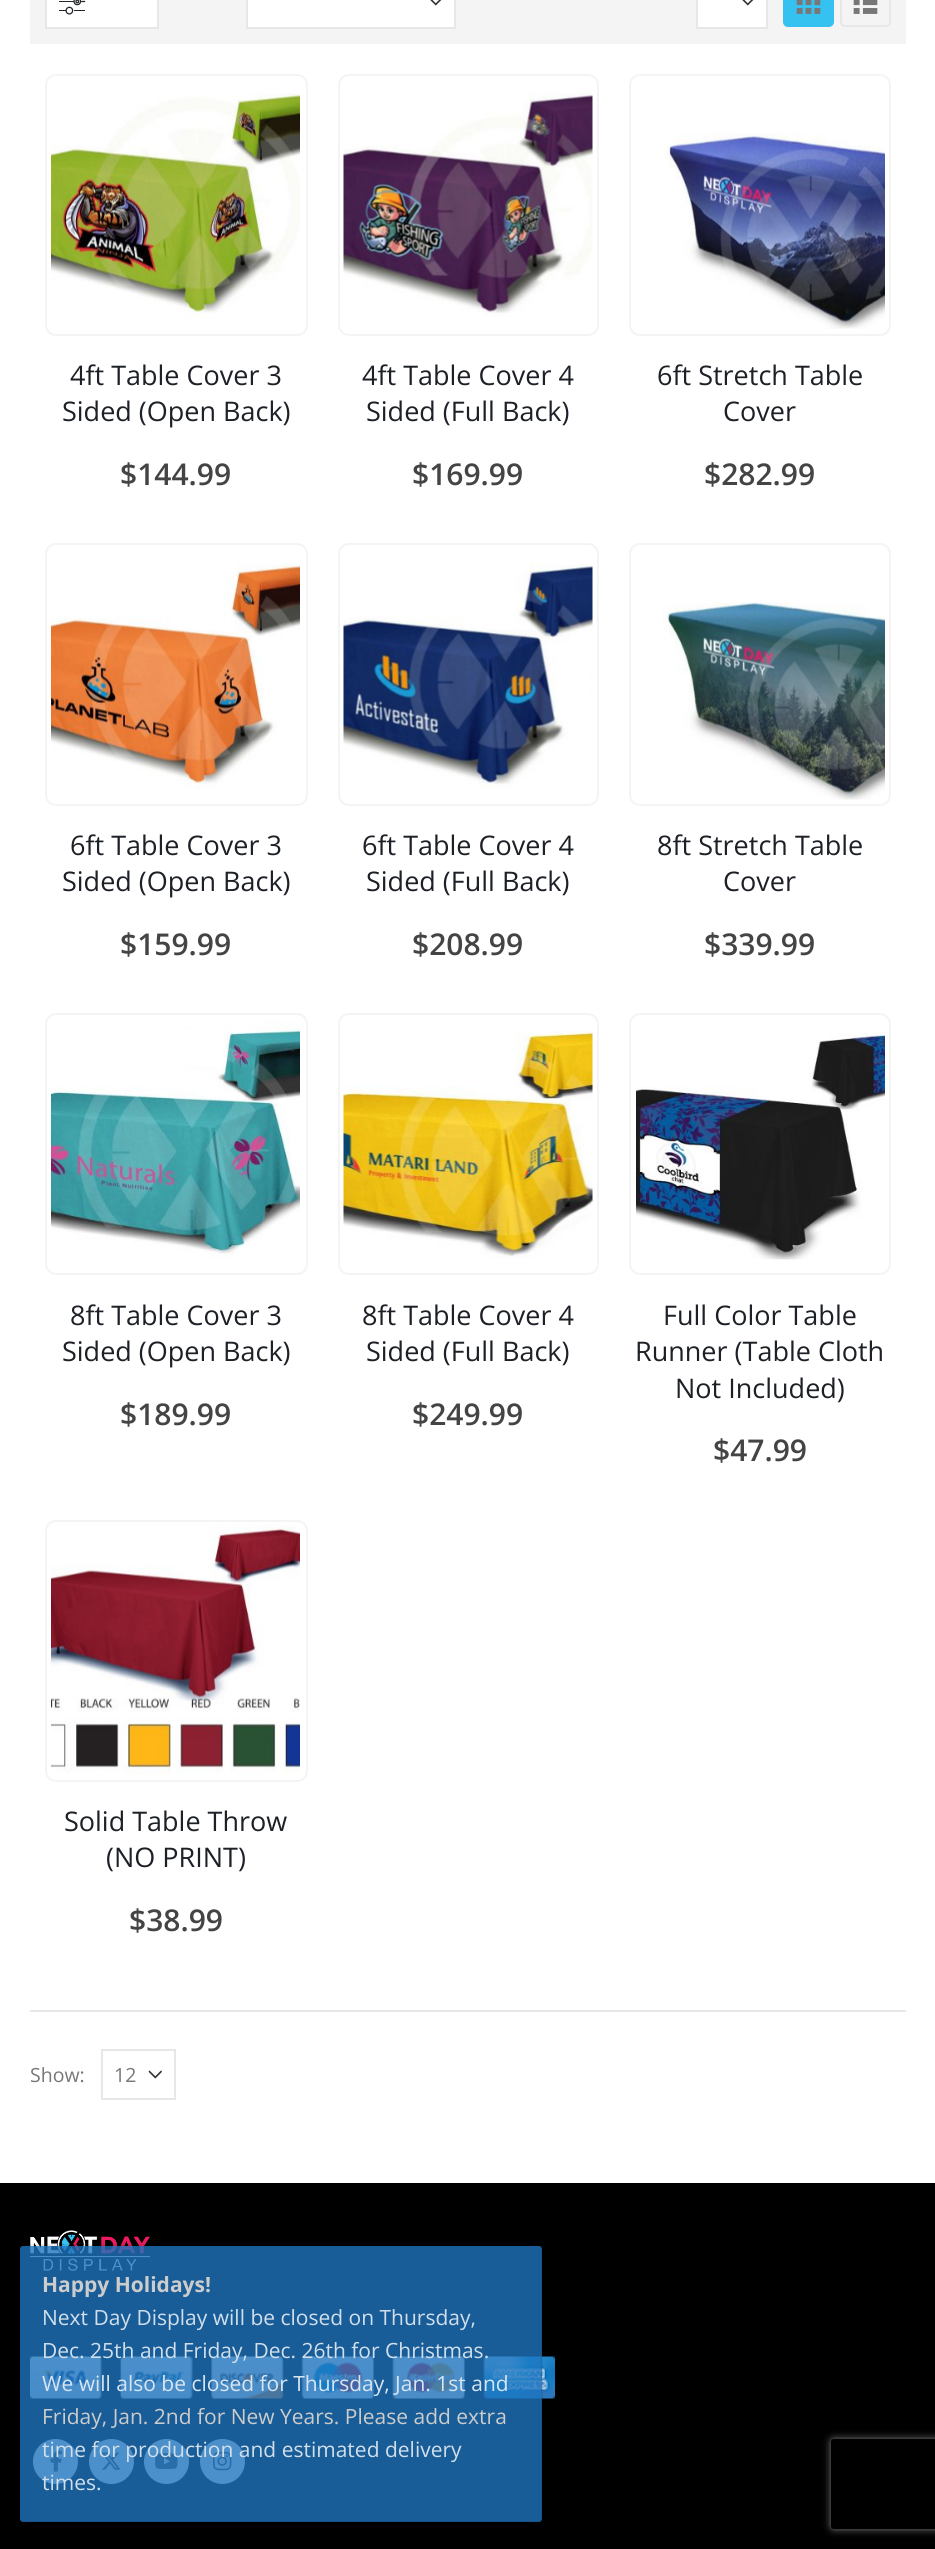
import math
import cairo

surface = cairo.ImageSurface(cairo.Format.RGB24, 935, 2549)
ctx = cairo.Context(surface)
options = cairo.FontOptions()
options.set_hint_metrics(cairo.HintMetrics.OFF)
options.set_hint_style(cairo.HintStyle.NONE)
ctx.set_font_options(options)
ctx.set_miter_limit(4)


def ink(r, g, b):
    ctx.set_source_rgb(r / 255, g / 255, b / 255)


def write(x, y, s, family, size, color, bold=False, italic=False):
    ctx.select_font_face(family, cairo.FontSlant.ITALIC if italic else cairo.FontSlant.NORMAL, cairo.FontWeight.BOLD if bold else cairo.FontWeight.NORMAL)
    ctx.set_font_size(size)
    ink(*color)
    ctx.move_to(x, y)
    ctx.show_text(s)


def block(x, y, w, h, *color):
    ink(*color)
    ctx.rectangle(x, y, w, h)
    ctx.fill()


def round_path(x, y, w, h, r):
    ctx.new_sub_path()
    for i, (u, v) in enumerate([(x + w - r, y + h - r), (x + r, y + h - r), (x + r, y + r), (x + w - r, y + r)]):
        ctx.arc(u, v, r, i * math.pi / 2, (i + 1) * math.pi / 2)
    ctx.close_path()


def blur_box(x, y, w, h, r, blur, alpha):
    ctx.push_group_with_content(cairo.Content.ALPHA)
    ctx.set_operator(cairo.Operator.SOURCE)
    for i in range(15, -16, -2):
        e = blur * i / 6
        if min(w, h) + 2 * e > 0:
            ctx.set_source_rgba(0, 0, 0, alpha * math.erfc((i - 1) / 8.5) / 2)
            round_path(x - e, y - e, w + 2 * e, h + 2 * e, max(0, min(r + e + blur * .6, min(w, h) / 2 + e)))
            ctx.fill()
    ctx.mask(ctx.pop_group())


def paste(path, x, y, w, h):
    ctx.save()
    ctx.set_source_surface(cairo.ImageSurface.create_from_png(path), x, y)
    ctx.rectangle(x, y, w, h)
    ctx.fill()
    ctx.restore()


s1 = dict(family="Open Sans", size=27, color=(29, 33, 39))
s2 = dict(family="Open Sans SemiBold", size=30, color=(68, 68, 68))
s3 = dict(family="Open Sans", size=19.5, color=(119, 119, 119))
s4 = dict(family="Open Sans", size=21, color=(204, 204, 204), bold=True)
s5 = dict(family="Open Sans", size=21, color=(209, 223, 235))
s6 = dict(family="Open Sans", size=21, color=(216, 229, 241))
s7 = dict(family="Open Sans", size=21, color=(204, 204, 204))

ink(255, 255, 255)
ctx.paint()
block(30, 0, 876, 44, 244, 244, 244)
ink(255, 255, 255)
ctx.rectangle(46, -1, 112, 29)
ctx.fill_preserve()
ink(231, 231, 231)
ctx.stroke()
paste("pic1.png", 59, 0, 27, 15)
block(248, 0, 206, 27, 255, 255, 255)
paste("pic2.png", 430, 0, 12, 6)
ctx.rectangle(247, -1, 208, 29)
ink(231, 231, 231)
ctx.stroke()
block(698, 0, 68, 27, 255, 255, 255)
paste("pic2.png", 742, 0, 12, 6)
ctx.rectangle(697, -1, 70, 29)
ink(231, 231, 231)
ctx.stroke()
ink(54, 194, 241)
round_path(784, -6, 49, 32, 4)
ctx.fill_preserve()
ctx.stroke()
paste("pic3.png", 796, 0, 25, 14)
round_path(841, -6, 49, 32, 4)
ink(231, 231, 231)
ctx.stroke()
paste("pic4.png", 853, 0, 25, 14)
round_path(46, 75, 261, 260, 10)
ink(244, 244, 244)
ctx.stroke()
paste("pic5.png", 51, 93, 249, 225)
write(70, 385, "4ft Table Cover 3", **s1)
write(62, 421, "Sided (Open Back)", **s1)
write(120, 485, "$144.99", **s2)
round_path(339, 75, 259, 260, 10)
ink(244, 244, 244)
ctx.stroke()
paste("pic6.png", 343, 92, 250, 225)
write(362, 385, "4ft Table Cover 4", **s1)
write(366, 421, "Sided (Full Back)", **s1)
write(412, 485, "$169.99", **s2)
round_path(630, 75, 260, 260, 10)
ink(244, 244, 244)
ctx.stroke()
paste("pic7.png", 663, 132, 222, 197)
write(657, 385, "6ft Stretch Table", **s1)
write(723, 421, "Cover", **s1)
write(704, 485, "$282.99", **s2)
round_path(46, 544, 261, 261, 10)
ink(244, 244, 244)
ctx.stroke()
paste("pic8.png", 51, 563, 249, 227)
write(70, 855, "6ft Table Cover 3", **s1)
write(62, 891, "Sided (Open Back)", **s1)
write(120, 955, "$159.99", **s2)
round_path(339, 544, 259, 261, 10)
ink(244, 244, 244)
ctx.stroke()
paste("pic9.png", 343, 563, 250, 225)
write(362, 855, "6ft Table Cover 4", **s1)
write(366, 891, "Sided (Full Back)", **s1)
write(412, 955, "$208.99", **s2)
round_path(630, 544, 260, 261, 10)
ink(244, 244, 244)
ctx.stroke()
paste("pic10.png", 663, 602, 222, 198)
write(657, 855, "8ft Stretch Table", **s1)
write(723, 891, "Cover", **s1)
write(704, 955, "$339.99", **s2)
round_path(46, 1014, 261, 260, 10)
ink(244, 244, 244)
ctx.stroke()
paste("pic11.png", 51, 1020, 249, 239)
write(70, 1325, "8ft Table Cover 3", **s1)
write(62, 1361, "Sided (Open Back)", **s1)
write(120, 1425, "$189.99", **s2)
round_path(339, 1014, 259, 260, 10)
ink(244, 244, 244)
ctx.stroke()
paste("pic12.png", 343, 1030, 250, 229)
write(362, 1325, "8ft Table Cover 4", **s1)
write(366, 1361, "Sided (Full Back)", **s1)
write(412, 1425, "$249.99", **s2)
round_path(630, 1014, 260, 260, 10)
ink(244, 244, 244)
ctx.stroke()
paste("pic13.png", 636, 1033, 249, 227)
write(663, 1325, "Full Color Table", **s1)
write(635, 1361, "Runner (Table Cloth", **s1)
write(675, 1398, "Not Included)", **s1)
write(713, 1461, "$47.99", **s2)
round_path(46, 1521, 261, 260, 10)
ink(244, 244, 244)
ctx.stroke()
paste("pic14.png", 51, 1525, 249, 250)
write(64, 1831, "Solid Table Throw", **s1)
write(106, 1867, "(NO PRINT)", **s1)
write(129, 1931, "$38.99", **s2)
block(30, 2010, 876, 2, 231, 231, 231)
write(30, 2082, "Show:", **s3)
paste("pic15.png", 148, 2070, 14, 9)
ctx.rectangle(102, 2050, 73, 49)
ink(231, 231, 231)
ctx.stroke()
write(114, 2082, "12", **s3)
block(0, 2183, 935, 366, 0, 0, 0)
paste("pic16.png", 30, 2230, 120, 41)
paste("pic17.png", 30, 2356, 525, 43)
ink(255, 255, 255)
ctx.arc(55.5, 2461.5, 22.5, 0, 2 * math.pi)
ctx.fill()
paste("pic18.png", 50, 2450, 12, 22)
ctx.arc(111.5, 2461.5, 22.5, 0, 2 * math.pi)
ctx.fill()
paste("pic19.png", 101, 2452, 20, 18)
ctx.arc(166.5, 2461.5, 22.5, 0, 2 * math.pi)
ctx.fill()
paste("pic20.png", 155, 2453, 23, 16)
ctx.arc(222.5, 2461.5, 22.5, 0, 2 * math.pi)
ctx.fill()
paste("pic21.png", 213, 2451, 19, 20)
ctx.set_source_rgba(0.118, 0.451, 0.745, 0.8)
round_path(20, 2246, 522, 276, 3)
ctx.fill()
round_path(19, 2245, 523, 277, 4)
ctx.set_source_rgba(0, 0, 0, 0.08)
ctx.stroke()
write(42, 2292, "Happy Holidays!", **s4)
write(42, 2325, "Next Day Display will be closed on Thursday,", **s5)
write(42, 2358, "Dec. 25th and Friday, Dec. 26th for Christmas.", **s5)
write(42, 2391, "We will also be closed for Thursday, Jan. 1st and", **s6)
write(42, 2424, "Friday, Jan. 2nd for New Years. Please add extra", **s7)
write(42, 2457, "time for production and estimated delivery", **s5)
write(42, 2490, "times.", **s5)
ctx.save()
ctx.set_fill_rule(cairo.FillRule.EVEN_ODD)
ctx.new_path()
ctx.move_to(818, 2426)
ctx.line_to(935, 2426)
ctx.line_to(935, 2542)
ctx.line_to(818, 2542)
ctx.close_path()
ctx.move_to(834, 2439)
ctx.line_to(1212, 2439)
ctx.curve_to(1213.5, 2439, 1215, 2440.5, 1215, 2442)
ctx.line_to(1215, 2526)
ctx.curve_to(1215, 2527.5, 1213.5, 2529, 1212, 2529)
ctx.line_to(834, 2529)
ctx.curve_to(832.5, 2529, 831, 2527.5, 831, 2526)
ctx.line_to(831, 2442)
ctx.curve_to(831, 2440.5, 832.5, 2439, 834, 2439)
ctx.close_path()
ctx.clip()
ink(128, 128, 128)
blur_box(831, 2439, 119, 90, 3, 4, 1)
ctx.restore()
surface.write_to_png("screenshot.png")
